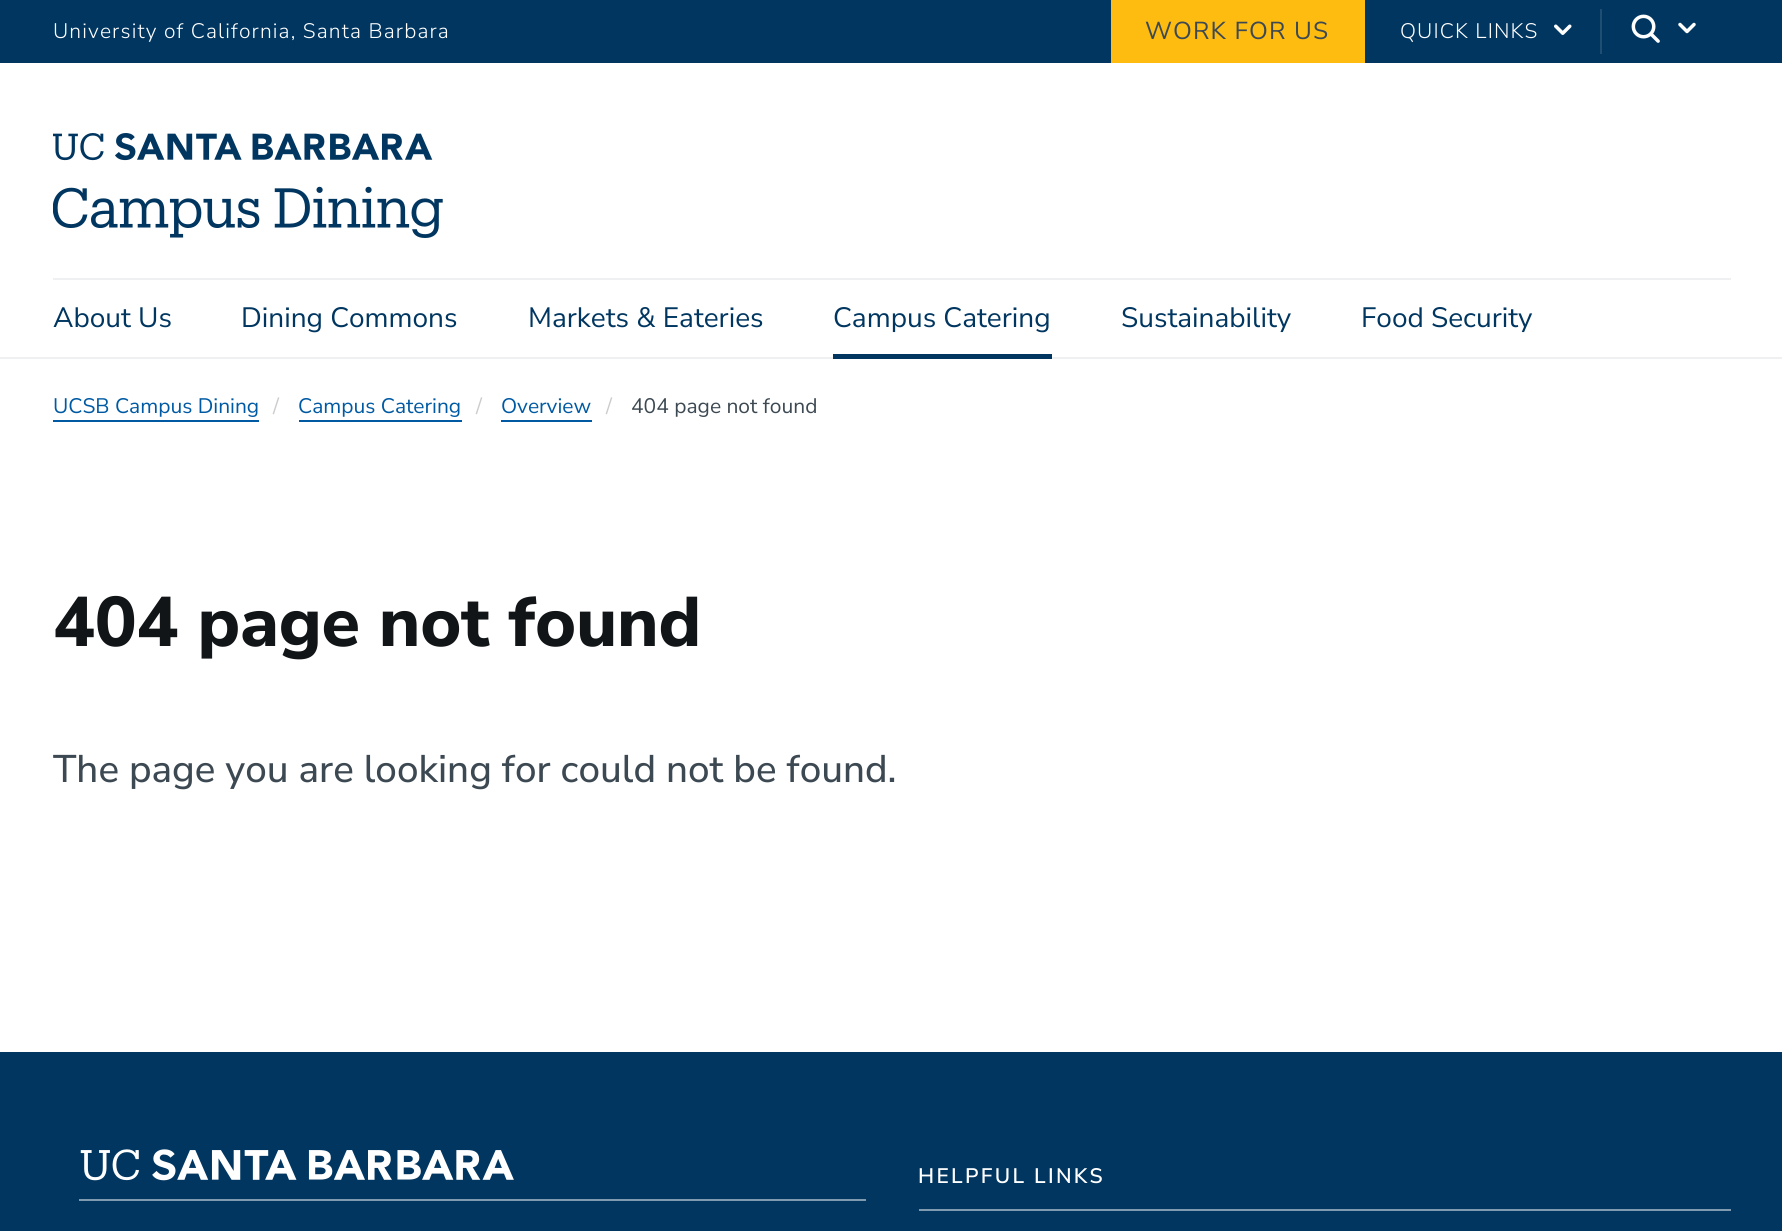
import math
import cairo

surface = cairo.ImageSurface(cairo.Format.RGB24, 1782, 1231)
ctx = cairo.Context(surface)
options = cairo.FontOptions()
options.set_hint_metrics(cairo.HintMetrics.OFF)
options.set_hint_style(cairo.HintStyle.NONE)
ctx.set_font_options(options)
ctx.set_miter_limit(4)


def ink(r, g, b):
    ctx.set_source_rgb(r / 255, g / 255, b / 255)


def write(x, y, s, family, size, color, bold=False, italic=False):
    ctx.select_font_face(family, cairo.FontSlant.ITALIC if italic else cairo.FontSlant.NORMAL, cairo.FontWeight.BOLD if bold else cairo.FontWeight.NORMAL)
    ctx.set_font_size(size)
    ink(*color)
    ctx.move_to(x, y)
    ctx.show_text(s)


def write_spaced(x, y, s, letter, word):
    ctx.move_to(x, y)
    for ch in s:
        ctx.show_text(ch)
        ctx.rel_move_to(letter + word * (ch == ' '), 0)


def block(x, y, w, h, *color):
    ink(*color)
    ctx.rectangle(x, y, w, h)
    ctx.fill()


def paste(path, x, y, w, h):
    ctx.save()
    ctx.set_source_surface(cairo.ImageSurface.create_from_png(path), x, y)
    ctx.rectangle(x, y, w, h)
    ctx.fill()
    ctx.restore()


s1 = dict(family="Nunito Sans", size=28, color=(0, 54, 96))
s2 = dict(family="Nunito Sans", size=21, color=(0, 90, 163))
s3 = dict(family="Nunito Sans", size=21, color=(204, 204, 204))
s4 = dict(family="Nunito Sans", size=21, color=(61, 73, 82))
s5 = dict(family="Nunito Sans Medium", size=38.5, color=(61, 73, 82))

ink(255, 255, 255)
ctx.paint()
block(0, 357, 1782, 2, 238, 240, 242)
block(0, 0, 1782, 63, 0, 54, 96)
ctx.select_font_face("Nunito Sans Light")
ctx.set_font_size(21)
ink(255, 255, 255)
write_spaced(53, 38, "University of California, Santa Barbara", 1.15, 0)
block(1111, 0, 254, 63, 254, 188, 17)
ctx.select_font_face("Nunito Sans")
ctx.set_font_size(24.5)
ink(61, 73, 82)
write_spaced(1145, 39, "WORK FOR US", 1.15, 0)
ctx.select_font_face("Nunito Sans Light")
ctx.set_font_size(21)
ink(255, 255, 255)
write_spaced(1400, 38, "QUICK LINKS", 1.15, 0)
paste("pic1.png", 1554, 24, 18, 11)
block(1600, 9, 2, 45, 31, 78, 115)
paste("pic2.png", 1631, 14, 29, 29)
paste("pic3.png", 1678, 22, 18, 12)
block(53, 278, 1678, 2, 238, 240, 242)
paste("pic4.png", 53, 133, 390, 105)
write(53, 327, "About Us", **s1)
write(241, 327, "Dining Commons", **s1)
write(528, 327, "Markets & Eateries", **s1)
block(833, 354, 219, 5, 0, 54, 96)
write(833, 327, "Campus Catering", **s1)
write(1121, 327, "Sustainability", **s1)
write(1361, 327, "Food Security", **s1)
write(53, 413, "UCSB Campus Dining", **s2)
block(53, 420, 206, 2, 0, 90, 163)
write(273, 413, "/", **s3)
write(298, 413, "Campus Catering", **s2)
block(299, 420, 163, 2, 0, 90, 163)
write(476, 413, "/", **s3)
write(501, 413, "Overview", **s2)
block(501, 420, 91, 2, 0, 90, 163)
write(606, 413, "/", **s3)
write(631, 413, "404 page not found", **s4)
ctx.select_font_face("Nunito Sans ExtraBold")
ctx.set_font_size(70)
ink(17, 21, 23)
write_spaced(53, 646, "404 page not found", -0.25, 0)
write(53, 782, "The page you are looking for could not be found.", **s5)
block(0, 1052, 1782, 179, 0, 54, 96)
block(79, 1199, 787, 2, 128, 155, 176)
paste("pic5.png", 80, 1149, 434, 32)
block(919, 1209, 812, 2, 128, 155, 176)
ctx.select_font_face("Nunito Sans SemiBold")
ctx.set_font_size(21)
ink(255, 255, 255)
write_spaced(918, 1183, "HELPFUL LINKS", 2.3, 0)
surface.write_to_png("screenshot.png")
